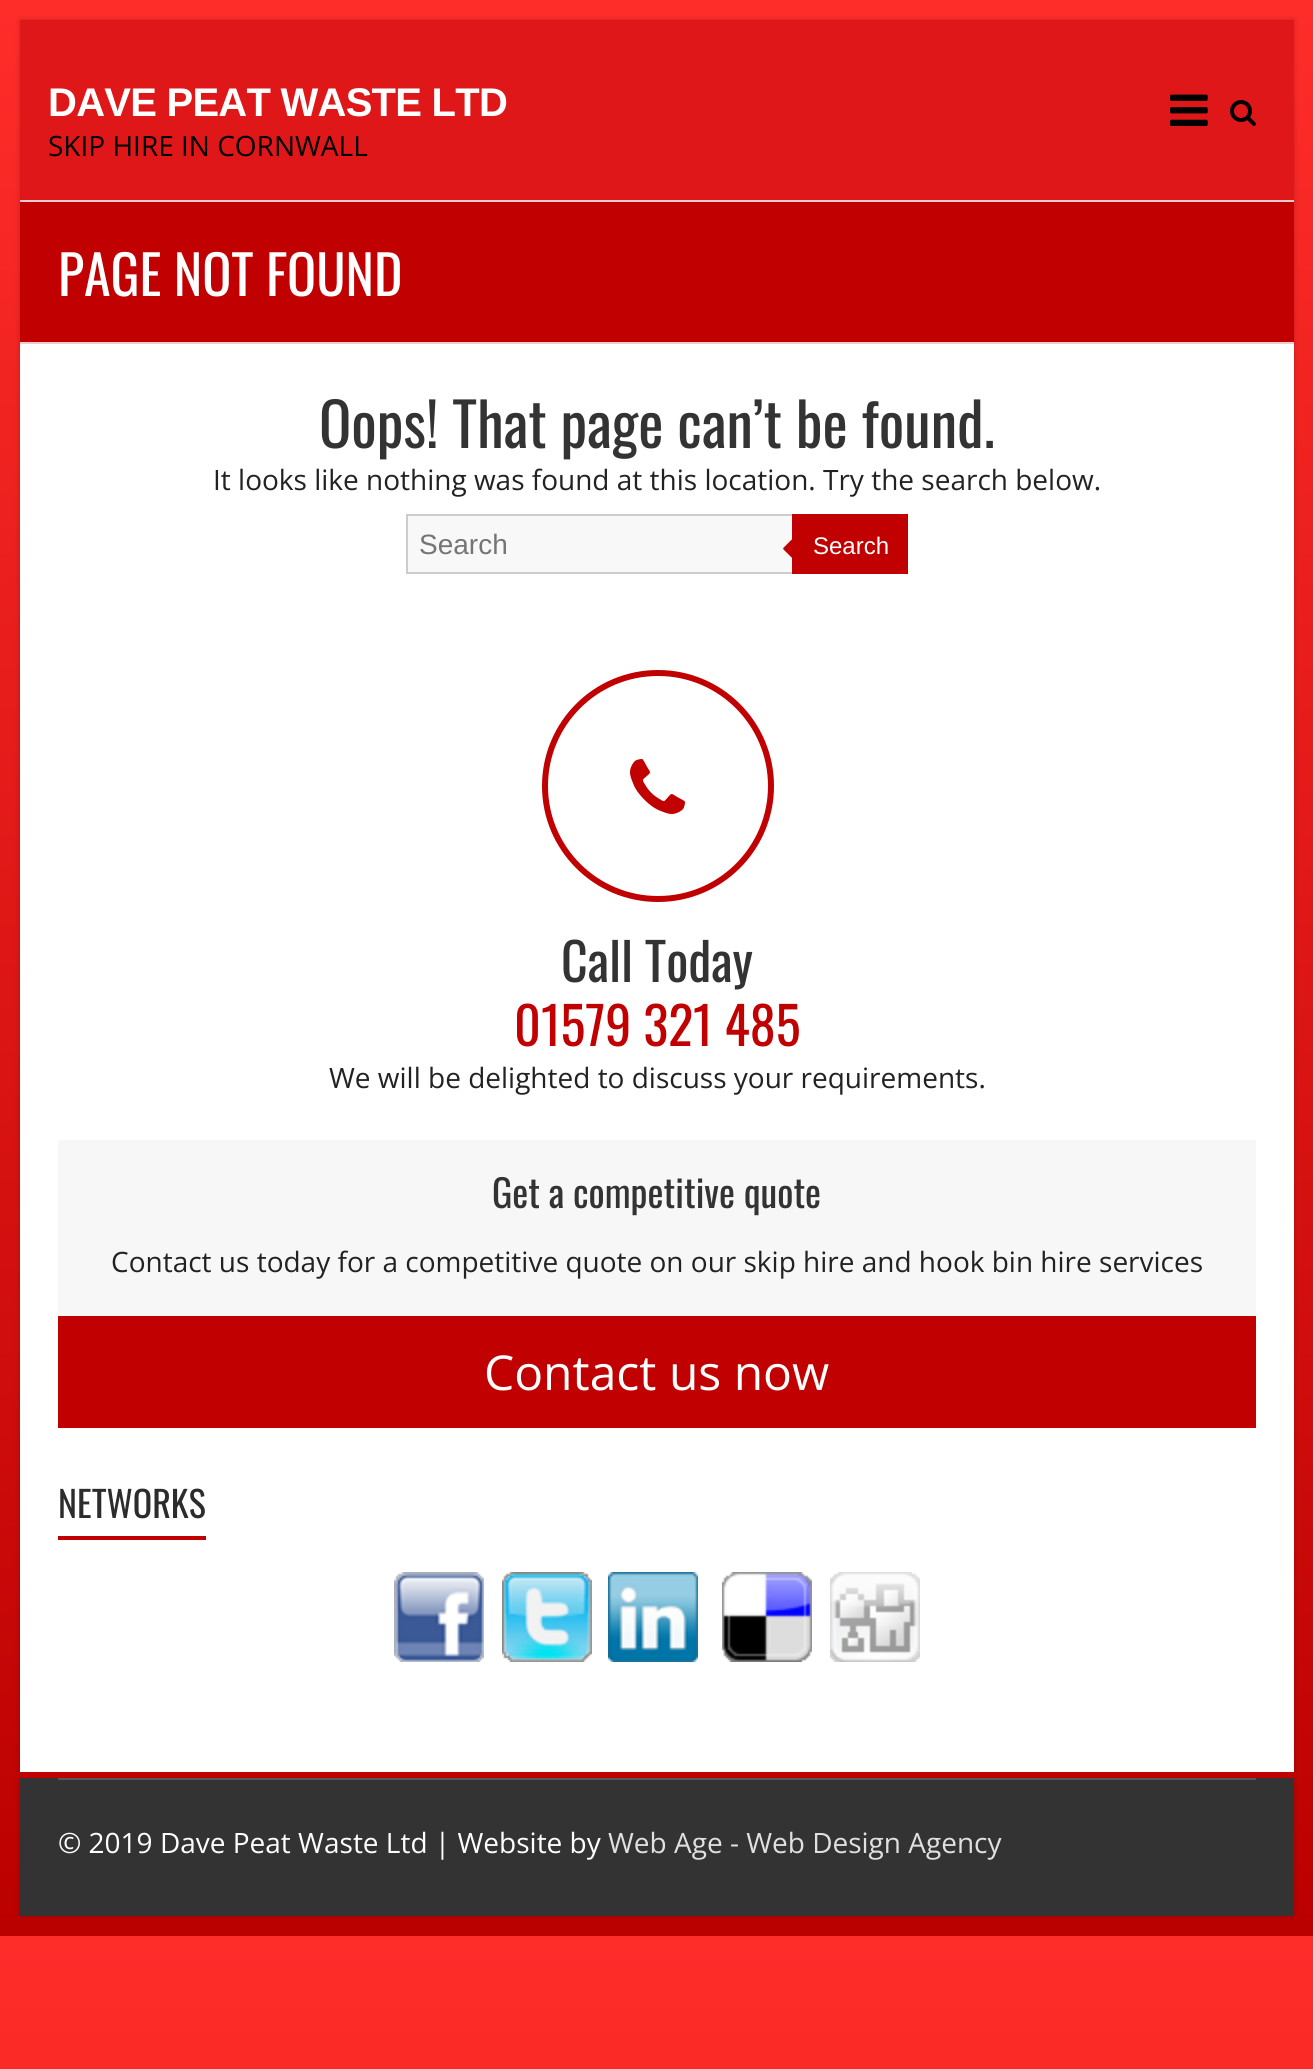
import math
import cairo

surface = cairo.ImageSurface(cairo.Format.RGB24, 1313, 2069)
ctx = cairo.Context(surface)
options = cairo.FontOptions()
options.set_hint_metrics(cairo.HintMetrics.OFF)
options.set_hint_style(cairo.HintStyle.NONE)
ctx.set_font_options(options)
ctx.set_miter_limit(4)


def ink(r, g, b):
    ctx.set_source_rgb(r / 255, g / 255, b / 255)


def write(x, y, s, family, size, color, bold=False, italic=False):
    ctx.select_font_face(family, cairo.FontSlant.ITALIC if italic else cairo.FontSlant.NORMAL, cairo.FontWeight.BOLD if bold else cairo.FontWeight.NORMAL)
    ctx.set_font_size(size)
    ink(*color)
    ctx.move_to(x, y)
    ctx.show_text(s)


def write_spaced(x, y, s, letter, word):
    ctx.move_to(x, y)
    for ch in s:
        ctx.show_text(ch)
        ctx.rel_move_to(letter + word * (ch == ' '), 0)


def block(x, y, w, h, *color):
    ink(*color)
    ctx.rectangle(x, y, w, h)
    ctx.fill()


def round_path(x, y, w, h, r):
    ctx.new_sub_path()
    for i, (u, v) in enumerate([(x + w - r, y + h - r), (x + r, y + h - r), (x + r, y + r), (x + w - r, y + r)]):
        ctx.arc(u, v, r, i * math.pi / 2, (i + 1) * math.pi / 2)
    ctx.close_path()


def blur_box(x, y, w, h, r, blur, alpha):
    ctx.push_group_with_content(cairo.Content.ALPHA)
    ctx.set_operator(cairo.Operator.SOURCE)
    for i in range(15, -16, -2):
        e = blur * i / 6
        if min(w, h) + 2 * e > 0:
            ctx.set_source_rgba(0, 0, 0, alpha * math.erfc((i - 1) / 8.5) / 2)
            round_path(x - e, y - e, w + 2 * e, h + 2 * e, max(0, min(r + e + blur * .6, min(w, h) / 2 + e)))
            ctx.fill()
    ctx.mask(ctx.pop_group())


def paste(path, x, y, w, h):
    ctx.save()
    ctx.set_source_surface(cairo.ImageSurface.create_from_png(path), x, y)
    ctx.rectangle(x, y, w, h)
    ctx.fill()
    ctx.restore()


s1 = dict(family="Open Sans", size=28, color=(0, 0, 0))
s2 = dict(family="Oswald", size=54, color=(255, 255, 255))
s3 = dict(family="Oswald", size=60, color=(51, 51, 51))
s4 = dict(family="Open Sans", size=28, color=(34, 34, 34))
s5 = dict(family="Liberation Sans", size=28, color=(117, 117, 117))
s6 = dict(family="Liberation Sans", size=24, color=(255, 255, 255))
s7 = dict(family="Oswald", size=52, color=(51, 51, 51))
s8 = dict(family="Oswald", size=52, color=(192, 0, 1))
s9 = dict(family="Oswald", size=38, color=(51, 51, 51))
s10 = dict(family="Open Sans", size=48, color=(255, 255, 255))
s11 = dict(family="Oswald", size=36, color=(44, 44, 44))
s12 = dict(family="Open Sans", size=28, color=(255, 255, 255))
s13 = dict(family="Open Sans", size=28, color=(224, 224, 224))

ink(255, 255, 255)
ctx.paint()
gradient = cairo.LinearGradient(657, 0, 657, 1936)
gradient.add_color_stop_rgba(0, 1, 0.176, 0.165, 1)
gradient.add_color_stop_rgba(1, 0.733, 0, 0, 1)
ctx.set_source(gradient)
ctx.rectangle(0, 0, 1313, 1936)
ctx.fill()
gradient = cairo.LinearGradient(657, 1936, 657, 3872)
gradient.add_color_stop_rgba(0, 1, 0.176, 0.165, 1)
gradient.add_color_stop_rgba(1, 0.733, 0, 0, 1)
ctx.set_source(gradient)
ctx.rectangle(0, 1936, 1313, 133)
ctx.fill()
ink(0, 0, 0)
blur_box(20, 20, 1274, 1896, 0, 3, 0.2)
block(20, 344, 1274, 1428, 255, 255, 255)
block(20, 20, 1274, 180, 223, 23, 25)
ctx.select_font_face("Liberation Sans", cairo.FontSlant.NORMAL, cairo.FontWeight.BOLD)
ctx.set_font_size(40)
ink(255, 255, 255)
write_spaced(48, 116, "DAVE PEAT WASTE LTD", -0.75, 0)
write(48, 156, "SKIP HIRE IN CORNWALL", **s1)
paste("pic1.png", 1170, 94, 38, 32)
paste("pic2.png", 1230, 100, 26, 26)
block(20, 202, 1274, 140, 192, 0, 1)
block(20, 200, 1274, 2, 242, 204, 204)
block(20, 342, 1274, 2, 242, 204, 204)
write(58, 296, "PAGE NOT FOUND", **s2)
write(319, 448, "Oops! That page can’t be found.", **s3)
write(213, 490, "It looks like nothing was found at this location. Try the search below.", **s4)
block(408, 516, 384, 56, 248, 248, 248)
ctx.rectangle(407, 515, 388, 58)
ink(204, 204, 204)
ctx.stroke()
write(419, 554, "Search", **s5)
block(792, 514, 116, 60, 192, 0, 1)
paste("pic3.png", 783, 539, 9, 19)
write(813, 554, "Search", **s6)
ctx.new_path()
ctx.arc(658, 786, 113, 0, 2 * math.pi)
ink(192, 0, 1)
ctx.set_line_width(6)
ctx.stroke()
paste("pic4.png", 630, 759, 55, 55)
write(561, 982, "Call Today", **s7)
write(514, 1046, "01579 321 485", **s8)
write(329, 1088, "We will be delighted to discuss your requirements.", **s4)
block(58, 1140, 1198, 176, 247, 247, 247)
write(492, 1208, "Get a competitive quote", **s9)
write(111, 1272, "Contact us today for a competitive quote on our skip hire and hook bin hire services", **s4)
block(58, 1316, 1198, 112, 192, 0, 1)
write(484, 1390, "Contact us now", **s10)
write(58, 1518, "NETWORKS", **s11)
block(58, 1536, 148, 4, 192, 0, 1)
paste("pic5.png", 394, 1572, 90, 90)
paste("pic6.png", 502, 1572, 90, 90)
paste("pic7.png", 608, 1572, 90, 90)
paste("pic8.png", 722, 1572, 90, 90)
paste("pic9.png", 830, 1572, 90, 90)
block(20, 1778, 1274, 138, 51, 51, 51)
block(20, 1772, 1274, 6, 192, 0, 1)
block(58, 1778, 1198, 2, 82, 88, 91)
write(58, 1853, "© 2019 Dave Peat Waste Ltd | Website by", **s12)
write(608, 1853, "Web Age - Web Design Agency", **s13)
surface.write_to_png("screenshot.png")
